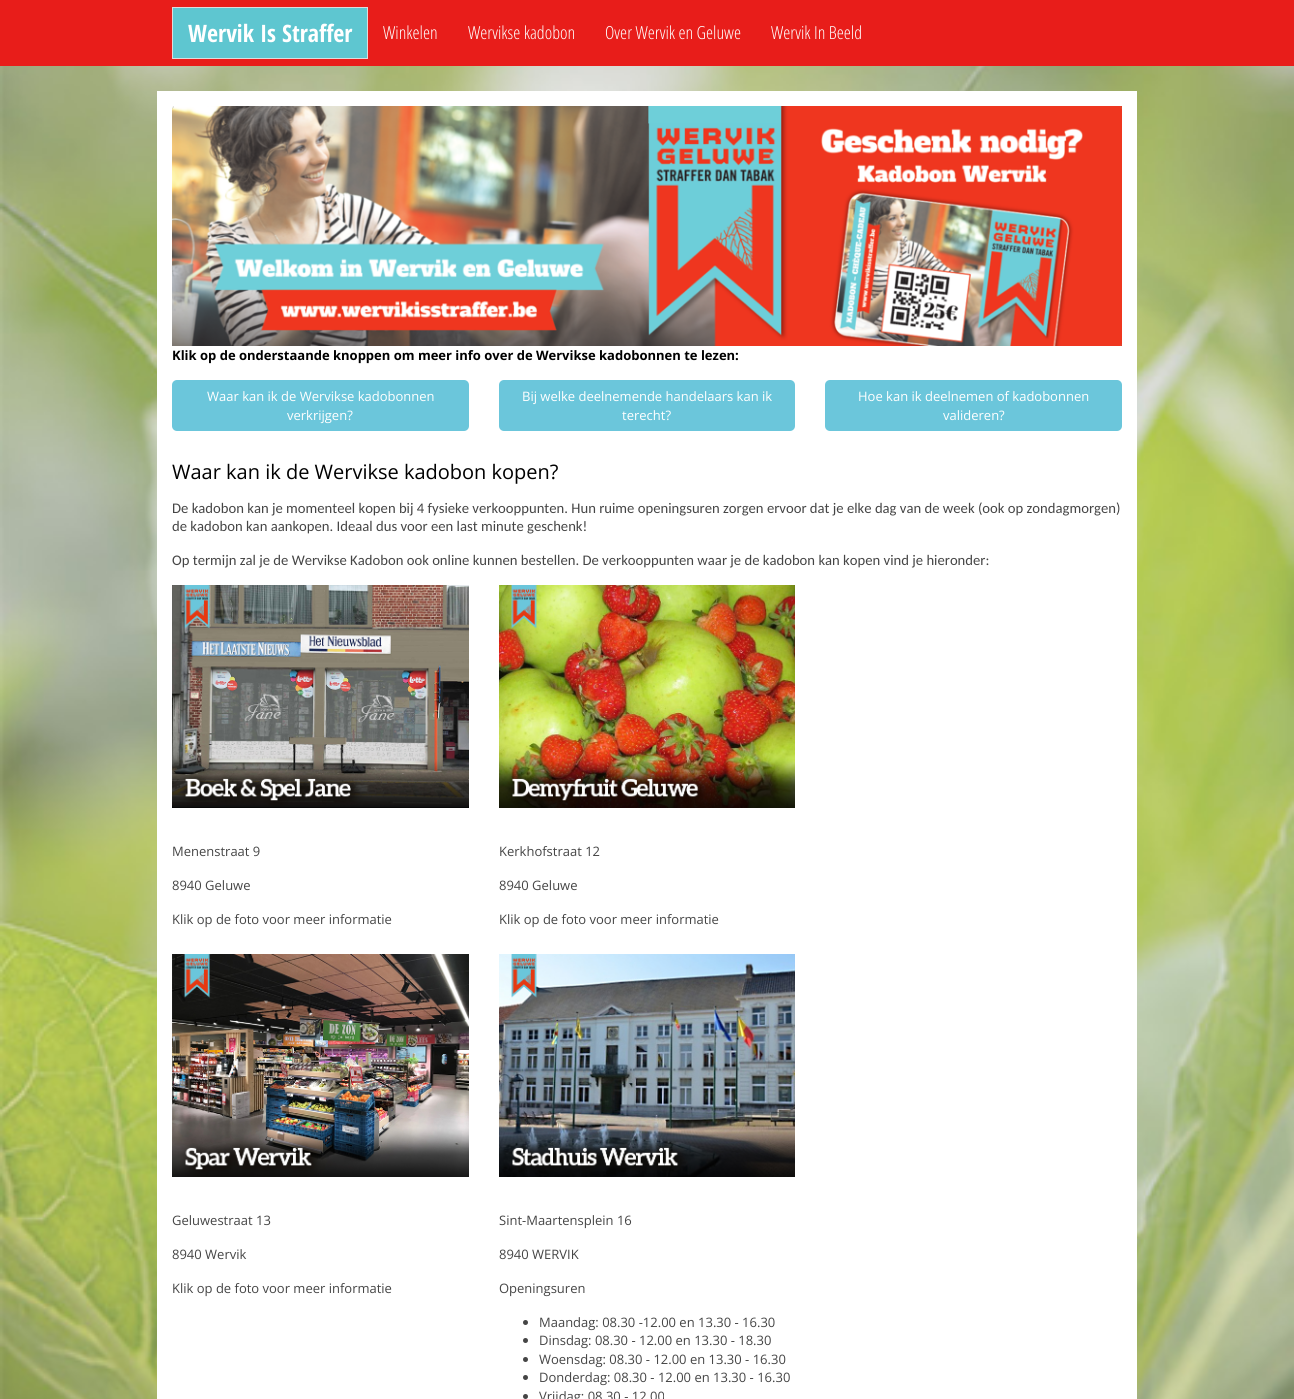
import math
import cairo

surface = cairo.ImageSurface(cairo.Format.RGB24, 1294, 1399)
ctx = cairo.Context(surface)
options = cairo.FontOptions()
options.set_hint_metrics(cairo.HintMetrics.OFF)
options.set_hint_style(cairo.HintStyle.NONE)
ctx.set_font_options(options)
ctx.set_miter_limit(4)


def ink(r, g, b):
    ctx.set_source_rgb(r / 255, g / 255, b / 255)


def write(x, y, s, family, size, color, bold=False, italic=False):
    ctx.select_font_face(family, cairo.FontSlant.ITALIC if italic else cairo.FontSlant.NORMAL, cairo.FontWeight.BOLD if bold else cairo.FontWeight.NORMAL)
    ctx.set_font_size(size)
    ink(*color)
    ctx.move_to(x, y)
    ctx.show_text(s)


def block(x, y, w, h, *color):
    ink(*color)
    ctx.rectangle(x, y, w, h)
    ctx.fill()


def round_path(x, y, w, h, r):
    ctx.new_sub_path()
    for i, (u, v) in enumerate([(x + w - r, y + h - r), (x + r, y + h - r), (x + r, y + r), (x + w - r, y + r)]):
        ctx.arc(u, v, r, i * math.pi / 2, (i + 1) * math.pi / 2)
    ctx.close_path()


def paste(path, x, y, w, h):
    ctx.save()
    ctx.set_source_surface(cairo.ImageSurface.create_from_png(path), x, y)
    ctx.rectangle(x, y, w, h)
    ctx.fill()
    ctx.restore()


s1 = dict(family="Open Sans Condensed", size=24, color=(255, 255, 255), bold=True)
s2 = dict(family="Open Sans Condensed Light", size=18, color=(255, 255, 255))
s3 = dict(family="Open Sans", size=13, color=(0, 0, 0), bold=True)
s4 = dict(family="Open Sans", size=13, color=(255, 255, 255))
s5 = dict(family="Open Sans", size=20, color=(0, 0, 0))
s6 = dict(family="Carlito", size=14.67, color=(69, 69, 69))
s7 = dict(family="Open Sans", size=13, color=(69, 69, 69))

ink(255, 255, 255)
ctx.paint()
paste("pic1.png", 0, 66, 1294, 1333)
block(0, 0, 1294, 66, 232, 29, 26)
ink(94, 198, 208)
ctx.rectangle(172.5, 7.5, 195, 51)
ctx.fill_preserve()
ink(221, 221, 221)
ctx.set_line_width(1)
ctx.stroke()
write(188, 42, "Wervik Is Straffer", **s1)
write(383, 39, "Winkelen", **s2)
write(468, 39, "Wervikse kadobon", **s2)
write(605, 39, "Over Wervik en Geluwe", **s2)
write(771, 39, "Wervik In Beeld", **s2)
block(157, 91, 980, 1308, 255, 255, 255)
paste("pic2.png", 172, 106, 950, 240)
write(172, 360, "Klik op de onderstaande knoppen om meer info over de Wervikse kadobonnen te lezen:", **s3)
ink(107, 198, 219)
round_path(172, 380, 297, 51, 5)
ctx.fill()
write(207, 401, "Waar kan ik de Wervikse kadobonnen", **s4)
write(287, 420, "verkrijgen?", **s4)
ink(107, 198, 219)
round_path(499, 380, 296, 51, 5)
ctx.fill()
write(522, 401, "Bij welke deelnemende handelaars kan ik", **s4)
write(622, 420, "terecht?", **s4)
ink(107, 198, 219)
round_path(825, 380, 297, 51, 5)
ctx.fill()
write(858, 401, "Hoe kan ik deelnemen of kadobonnen", **s4)
write(943, 420, "valideren?", **s4)
write(172, 479, "Waar kan ik de Wervikse kadobon kopen?", **s5)
write(172, 513, "De kadobon kan je momenteel kopen bij 4 fysieke verkooppunten. Hun ruime openingsuren zorgen ervoor dat je elke dag van de week (ook op zondagmorgen)", **s6)
write(172, 531, "de kadobon kan aankopen. Ideaal dus voor een last minute geschenk!", **s6)
write(172, 565, "Op termijn zal je de Wervikse Kadobon ook online kunnen bestellen. De verkooppunten waar je de kadobon kan kopen vind je hieronder:", **s6)
paste("pic3.png", 172, 585, 297, 223)
write(172, 856, "Menenstraat 9", **s7)
write(172, 890, "8940 Geluwe", **s7)
write(172, 924, "Klik op de foto voor meer informatie", **s7)
paste("pic4.png", 499, 585, 296, 223)
write(499, 856, "Kerkhofstraat 12", **s7)
write(499, 890, "8940 Geluwe", **s7)
write(499, 924, "Klik op de foto voor meer informatie", **s7)
paste("pic5.png", 172, 954, 297, 223)
write(172, 1225, "Geluwestraat 13", **s7)
write(172, 1259, "8940 Wervik", **s7)
write(172, 1293, "Klik op de foto voor meer informatie", **s7)
paste("pic6.png", 499, 954, 296, 223)
write(499, 1225, "Sint-Maartensplein 16", **s7)
write(499, 1259, "8940 WERVIK", **s7)
write(499, 1293, "Openingsuren", **s7)
ctx.new_path()
ctx.arc(525.5, 1322.5, 2.5, 0, 2 * math.pi)
ctx.fill()
write(539, 1327, "Maandag: 08.30 -12.00 en 13.30 - 16.30", **s7)
ctx.new_path()
ctx.arc(525.5, 1340.5, 2.5, 0, 2 * math.pi)
ctx.fill()
write(539, 1345, "Dinsdag: 08.30 - 12.00 en 13.30 - 18.30", **s7)
ctx.new_path()
ctx.arc(525.5, 1359.5, 2.5, 0, 2 * math.pi)
ctx.fill()
write(539, 1364, "Woensdag: 08.30 - 12.00 en 13.30 - 16.30", **s7)
ctx.new_path()
ctx.arc(525.5, 1377.5, 2.5, 0, 2 * math.pi)
ctx.fill()
write(539, 1382, "Donderdag: 08.30 - 12.00 en 13.30 - 16.30", **s7)
ctx.new_path()
ctx.arc(525.5, 1396.5, 2.5, 0, 2 * math.pi)
ctx.fill()
write(539, 1401, "Vrijdag: 08.30 - 12.00", **s7)
surface.write_to_png("screenshot.png")
